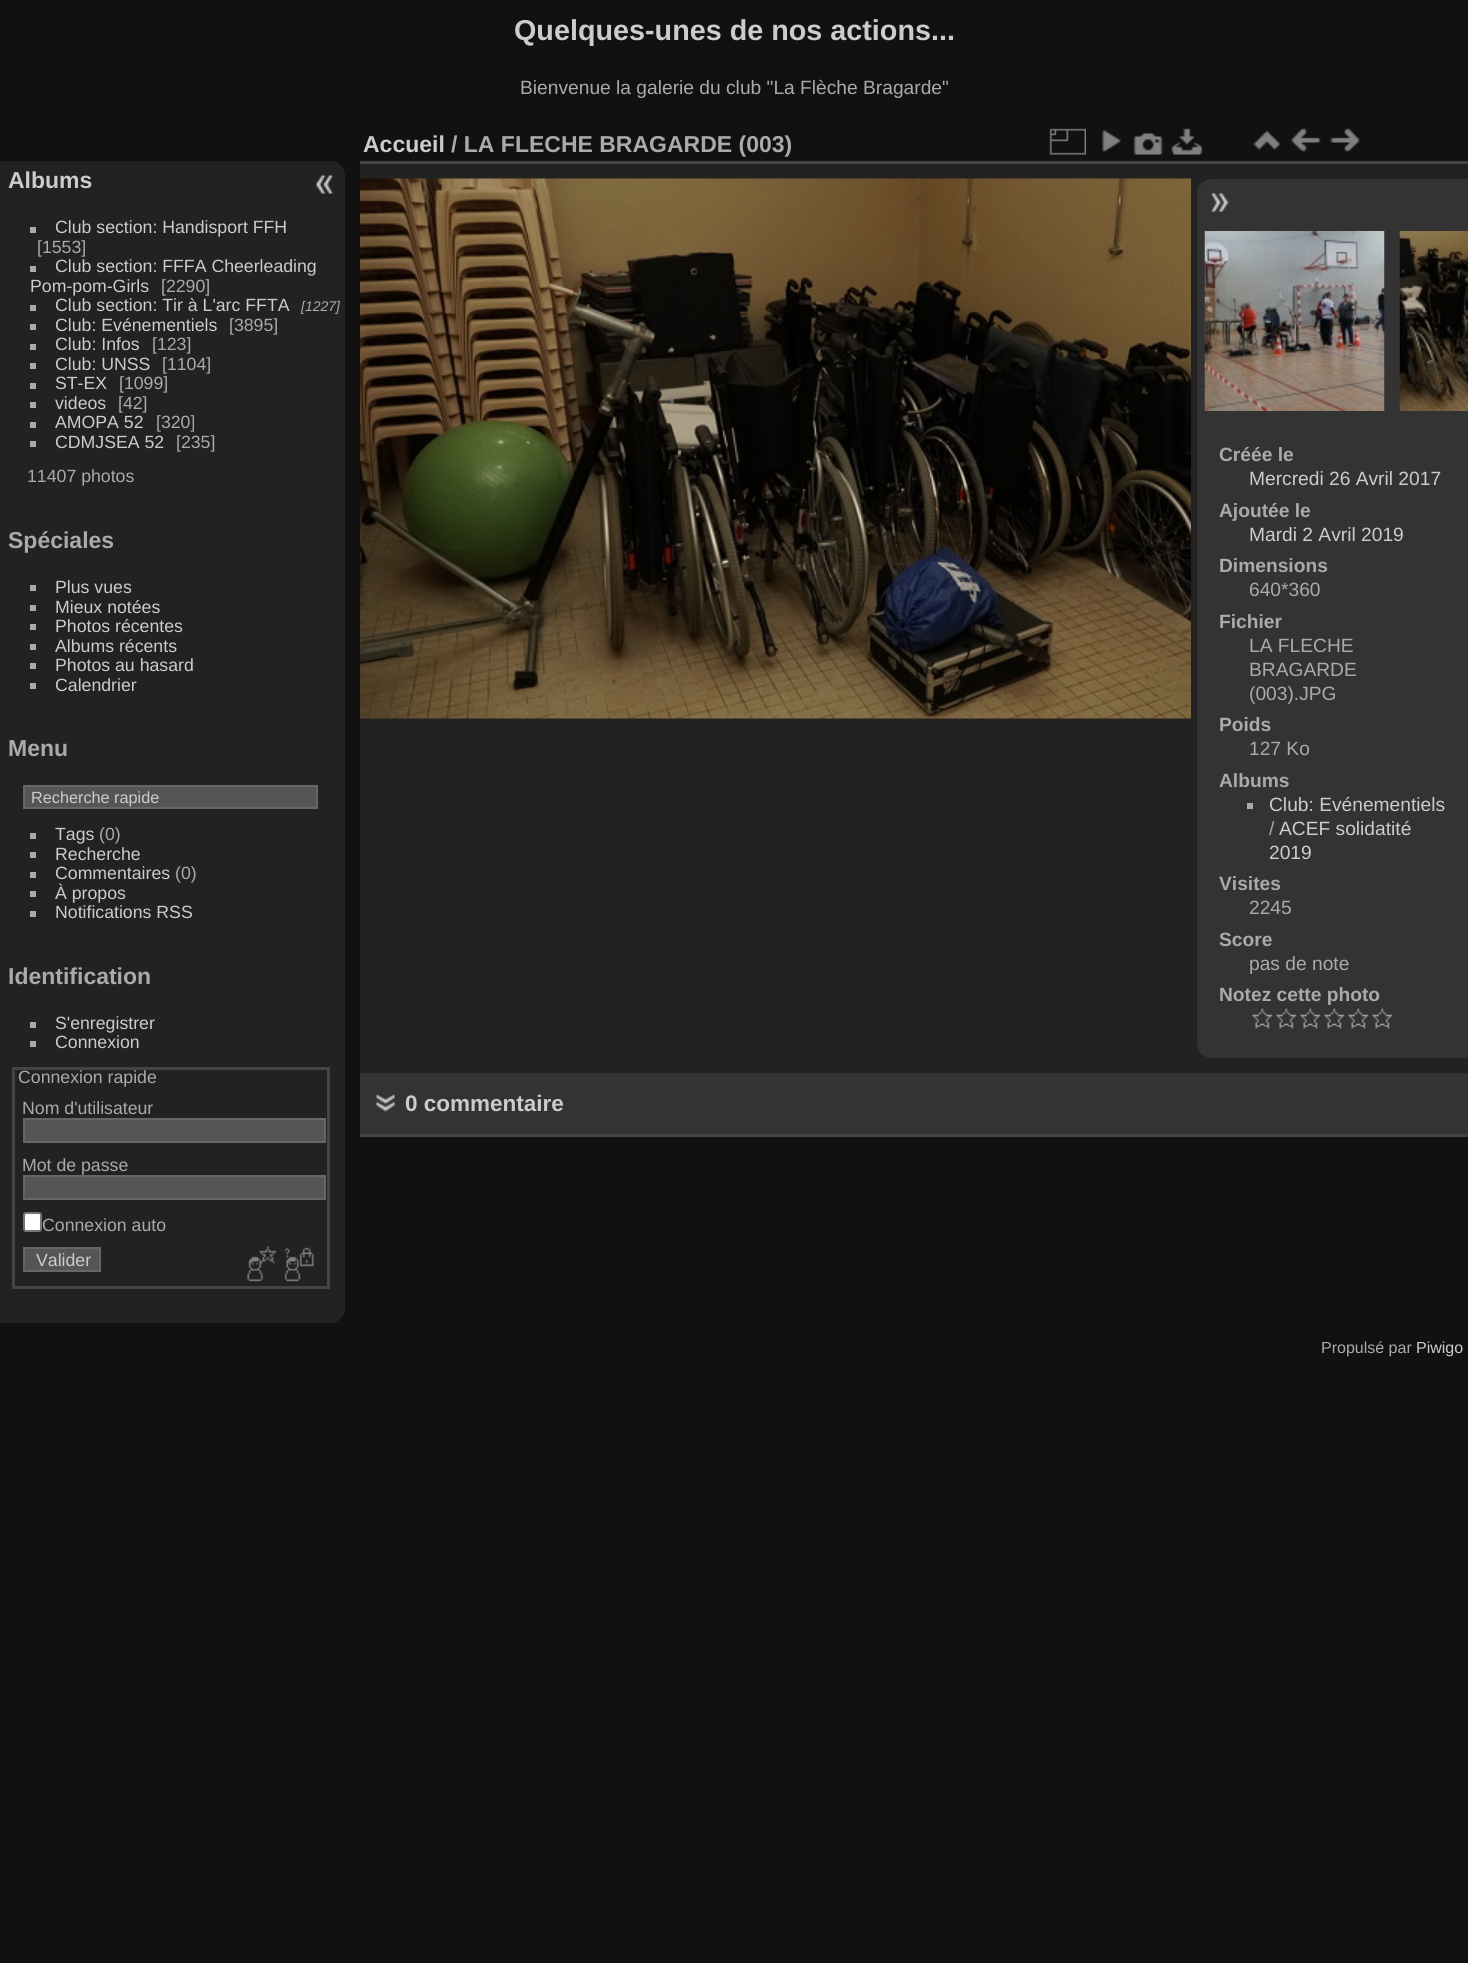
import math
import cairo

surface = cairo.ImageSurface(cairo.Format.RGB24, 1468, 1963)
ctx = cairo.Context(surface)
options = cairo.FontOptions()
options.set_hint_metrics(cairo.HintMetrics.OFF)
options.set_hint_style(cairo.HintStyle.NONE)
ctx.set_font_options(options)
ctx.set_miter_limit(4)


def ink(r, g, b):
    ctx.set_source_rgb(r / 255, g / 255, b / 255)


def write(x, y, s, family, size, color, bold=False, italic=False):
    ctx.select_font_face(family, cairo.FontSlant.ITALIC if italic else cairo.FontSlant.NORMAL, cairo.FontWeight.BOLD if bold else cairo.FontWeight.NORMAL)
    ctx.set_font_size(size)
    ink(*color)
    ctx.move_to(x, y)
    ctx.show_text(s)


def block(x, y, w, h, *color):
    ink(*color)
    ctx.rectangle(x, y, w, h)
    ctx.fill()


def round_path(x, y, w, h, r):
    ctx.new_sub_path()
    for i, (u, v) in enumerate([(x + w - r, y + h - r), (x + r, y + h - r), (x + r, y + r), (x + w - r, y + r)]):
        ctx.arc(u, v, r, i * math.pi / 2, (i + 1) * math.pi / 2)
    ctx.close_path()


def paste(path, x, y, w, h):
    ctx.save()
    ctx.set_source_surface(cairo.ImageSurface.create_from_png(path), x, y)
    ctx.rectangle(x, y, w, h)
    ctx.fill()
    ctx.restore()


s1 = dict(family="Liberation Sans", size=28.75, color=(204, 204, 204), bold=True)
s2 = dict(family="Liberation Sans", size=19.2, color=(170, 170, 170))
s3 = dict(family="Liberation Sans", size=23, color=(204, 204, 204), bold=True)
s4 = dict(family="Liberation Sans", size=17.7, color=(204, 204, 204))
s5 = dict(family="Liberation Sans", size=17.7, color=(170, 170, 170))
s6 = dict(family="Liberation Sans", size=14, color=(170, 170, 170), italic=True)
s7 = dict(family="Liberation Sans", size=23, color=(170, 170, 170), bold=True)
s8 = dict(family="Liberation Sans", size=16.25, color=(204, 204, 204))
s9 = dict(family="Liberation Sans", size=19.2, color=(170, 170, 170), bold=True)
s10 = dict(family="Liberation Sans", size=19.2, color=(204, 204, 204))
s11 = dict(family="Liberation Sans", size=22.5, color=(204, 204, 204), bold=True)
s12 = dict(family="Liberation Sans", size=16, color=(170, 170, 170))
s13 = dict(family="Liberation Sans", size=16, color=(204, 204, 204))

ink(17, 17, 17)
ctx.paint()
write(514, 40, "Quelques-unes de nos actions...", **s1)
write(520, 94, "Bienvenue la galerie du club \"La Flèche Bragarde\"", **s2)
ink(34, 34, 34)
ctx.new_path()
ctx.move_to(0, 161)
ctx.line_to(330, 161)
ctx.curve_to(338.5, 161, 345, 167.5, 345, 176)
ctx.line_to(345, 1308)
ctx.curve_to(345, 1316.5, 338.5, 1323, 330, 1323)
ctx.line_to(0, 1323)
ctx.close_path()
ctx.fill()
write(8, 188, "Albums", **s3)
block(30, 227, 6, 6, 170, 170, 170)
write(55, 233, "Club section: Handisport FFH", **s4)
write(37, 253, "[1553]", **s5)
block(30, 266, 6, 6, 170, 170, 170)
write(55, 272, "Club section: FFFA Cheerleading", **s4)
write(30, 292, "Pom-pom-Girls", **s4)
write(161, 292, "[2290]", **s5)
block(30, 305, 6, 6, 170, 170, 170)
write(55, 311, "Club section: Tir à L'arc FFTA", **s4)
write(301, 311, "[1227]", **s6)
block(30, 324, 6, 6, 170, 170, 170)
write(55, 331, "Club: Evénementiels", **s4)
write(229, 331, "[3895]", **s5)
block(30, 344, 6, 6, 170, 170, 170)
write(55, 350, "Club: Infos", **s4)
write(152, 350, "[123]", **s5)
block(30, 363, 6, 6, 170, 170, 170)
write(55, 370, "Club: UNSS", **s4)
write(162, 370, "[1104]", **s5)
block(30, 383, 6, 6, 170, 170, 170)
write(55, 389, "ST-EX", **s4)
write(119, 389, "[1099]", **s5)
block(30, 402, 6, 6, 170, 170, 170)
write(55, 409, "videos", **s4)
write(118, 409, "[42]", **s5)
block(30, 422, 6, 6, 170, 170, 170)
write(55, 428, "AMOPA 52", **s4)
write(156, 428, "[320]", **s5)
block(30, 441, 6, 6, 170, 170, 170)
write(55, 448, "CDMJSEA 52", **s4)
write(176, 448, "[235]", **s5)
write(27, 482, "11407 photos", **s5)
write(8, 548, "Spéciales", **s7)
block(30, 585, 6, 6, 170, 170, 170)
write(55, 593, "Plus vues", **s4)
block(30, 605, 6, 6, 170, 170, 170)
write(55, 613, "Mieux notées", **s4)
block(30, 624, 6, 6, 170, 170, 170)
write(55, 632, "Photos récentes", **s4)
block(30, 644, 6, 6, 170, 170, 170)
write(55, 652, "Albums récents", **s4)
block(30, 663, 6, 6, 170, 170, 170)
write(55, 671, "Photos au hasard", **s4)
block(30, 683, 6, 6, 170, 170, 170)
write(55, 691, "Calendrier", **s4)
write(8, 756, "Menu", **s7)
ink(85, 85, 85)
ctx.rectangle(24, 786, 293, 22)
ctx.fill_preserve()
ink(102, 102, 102)
ctx.stroke()
write(31, 803, "Recherche rapide", **s8)
block(30, 833, 6, 6, 170, 170, 170)
write(55, 840, "Tags", **s4)
write(99, 840, "(0)", **s5)
block(30, 852, 6, 6, 170, 170, 170)
write(55, 860, "Recherche", **s4)
block(30, 872, 6, 6, 170, 170, 170)
write(55, 879, "Commentaires", **s4)
write(175, 879, "(0)", **s5)
block(30, 891, 6, 6, 170, 170, 170)
write(55, 899, "À propos", **s4)
block(30, 911, 6, 6, 170, 170, 170)
write(55, 918, "Notifications RSS", **s4)
write(8, 984, "Identification", **s7)
block(30, 1022, 6, 6, 170, 170, 170)
write(55, 1029, "S'enregistrer", **s4)
block(30, 1041, 6, 6, 170, 170, 170)
write(55, 1048, "Connexion", **s4)
ctx.rectangle(13.5, 1068.5, 315, 219)
ink(68, 68, 68)
ctx.set_line_width(3)
ctx.stroke()
write(18, 1083, "Connexion rapide", **s5)
write(22, 1114, "Nom d'utilisateur", **s5)
ink(85, 85, 85)
ctx.rectangle(24, 1119, 301, 23)
ctx.fill_preserve()
ink(102, 102, 102)
ctx.set_line_width(2)
ctx.stroke()
write(22, 1171, "Mot de passe", **s5)
ink(85, 85, 85)
ctx.rectangle(24, 1176, 301, 23)
ctx.fill_preserve()
ink(102, 102, 102)
ctx.stroke()
ink(255, 255, 255)
round_path(24, 1213, 17, 18, 2)
ctx.fill_preserve()
ink(118, 118, 118)
ctx.stroke()
write(42, 1231, "Connexion auto", **s5)
ink(85, 85, 85)
ctx.rectangle(24, 1248, 76, 23)
ctx.fill_preserve()
ink(102, 102, 102)
ctx.stroke()
write(36, 1266, "Valider", **s4)
paste("pic1.png", 247, 1246, 30, 36)
paste("pic2.png", 284, 1247, 30, 35)
block(360, 164, 1108, 909, 34, 34, 34)
block(360, 1134, 1108, 3, 68, 68, 68)
block(360, 161, 1108, 3, 68, 68, 68)
write(363, 152, "Accueil", **s3)
write(451, 152, "/ LA FLECHE BRAGARDE (003)", **s7)
paste("pic3.png", 1049, 128, 37, 27)
paste("pic4.png", 1102, 130, 19, 22)
paste("pic5.png", 1133, 133, 30, 22)
paste("pic6.png", 1171, 128, 32, 27)
paste("pic7.png", 1253, 130, 27, 21)
paste("pic8.png", 1291, 128, 30, 24)
paste("pic9.png", 1330, 128, 30, 24)
paste("pic10.png", 360, 178, 831, 541)
ink(51, 51, 51)
ctx.new_path()
ctx.move_to(1212, 179)
ctx.line_to(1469, 179)
ctx.line_to(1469, 1058)
ctx.line_to(1212, 1058)
ctx.curve_to(1203.5, 1058, 1197, 1051.5, 1197, 1043)
ctx.line_to(1197, 194)
ctx.curve_to(1197, 185.5, 1203.5, 179, 1212, 179)
ctx.close_path()
ctx.fill()
paste("pic11.png", 1211, 193, 18, 19)
paste("pic12.png", 1204, 231, 181, 180)
paste("pic13.png", 1399, 231, 69, 180)
write(1219, 461, "Créée le", **s9)
write(1249, 485, "Mercredi 26 Avril 2017", **s10)
write(1219, 517, "Ajoutée le", **s9)
write(1249, 541, "Mardi 2 Avril 2019", **s10)
write(1219, 572, "Dimensions", **s9)
write(1249, 596, "640*360", **s2)
write(1219, 628, "Fichier", **s9)
write(1249, 652, "LA FLECHE", **s2)
write(1249, 676, "BRAGARDE", **s2)
write(1249, 700, "(003).JPG", **s2)
write(1219, 731, "Poids", **s9)
write(1249, 755, "127 Ko", **s2)
write(1219, 787, "Albums", **s9)
block(1247, 803, 6, 6, 170, 170, 170)
write(1269, 811, "Club: Evénementiels", **s10)
write(1269, 835, "/", **s2)
write(1279, 835, "ACEF solidatité", **s10)
write(1269, 859, "2019", **s10)
write(1219, 890, "Visites", **s9)
write(1249, 914, "2245", **s2)
write(1219, 946, "Score", **s9)
write(1249, 970, "pas de note", **s2)
write(1219, 1001, "Notez cette photo", **s9)
paste("pic14.png", 1252, 1008, 21, 21)
paste("pic15.png", 1276, 1008, 21, 21)
paste("pic16.png", 1300, 1008, 21, 21)
paste("pic16.png", 1324, 1008, 21, 21)
paste("pic16.png", 1348, 1008, 21, 21)
paste("pic16.png", 1372, 1008, 21, 21)
block(360, 1073, 1108, 61, 51, 51, 51)
paste("pic17.png", 376, 1094, 19, 18)
write(405, 1111, "0 commentaire", **s11)
paste("pic18.png", 315, 175, 19, 19)
write(1321, 1353, "Propulsé par", **s12)
write(1416, 1353, "Piwigo", **s13)
surface.write_to_png("screenshot.png")
